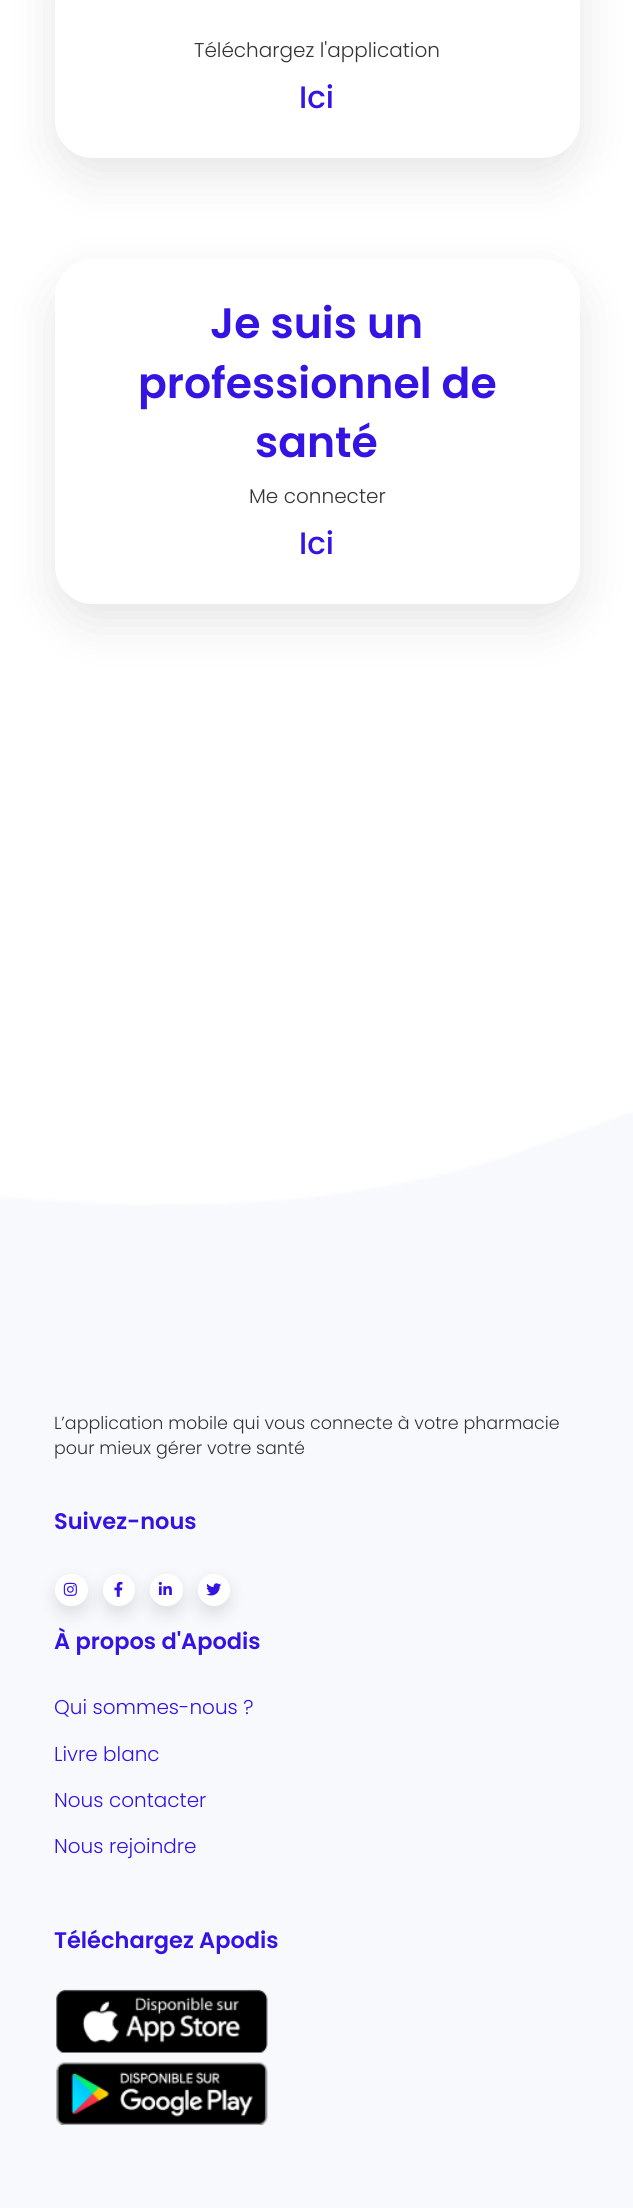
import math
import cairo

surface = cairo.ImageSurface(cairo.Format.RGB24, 633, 2208)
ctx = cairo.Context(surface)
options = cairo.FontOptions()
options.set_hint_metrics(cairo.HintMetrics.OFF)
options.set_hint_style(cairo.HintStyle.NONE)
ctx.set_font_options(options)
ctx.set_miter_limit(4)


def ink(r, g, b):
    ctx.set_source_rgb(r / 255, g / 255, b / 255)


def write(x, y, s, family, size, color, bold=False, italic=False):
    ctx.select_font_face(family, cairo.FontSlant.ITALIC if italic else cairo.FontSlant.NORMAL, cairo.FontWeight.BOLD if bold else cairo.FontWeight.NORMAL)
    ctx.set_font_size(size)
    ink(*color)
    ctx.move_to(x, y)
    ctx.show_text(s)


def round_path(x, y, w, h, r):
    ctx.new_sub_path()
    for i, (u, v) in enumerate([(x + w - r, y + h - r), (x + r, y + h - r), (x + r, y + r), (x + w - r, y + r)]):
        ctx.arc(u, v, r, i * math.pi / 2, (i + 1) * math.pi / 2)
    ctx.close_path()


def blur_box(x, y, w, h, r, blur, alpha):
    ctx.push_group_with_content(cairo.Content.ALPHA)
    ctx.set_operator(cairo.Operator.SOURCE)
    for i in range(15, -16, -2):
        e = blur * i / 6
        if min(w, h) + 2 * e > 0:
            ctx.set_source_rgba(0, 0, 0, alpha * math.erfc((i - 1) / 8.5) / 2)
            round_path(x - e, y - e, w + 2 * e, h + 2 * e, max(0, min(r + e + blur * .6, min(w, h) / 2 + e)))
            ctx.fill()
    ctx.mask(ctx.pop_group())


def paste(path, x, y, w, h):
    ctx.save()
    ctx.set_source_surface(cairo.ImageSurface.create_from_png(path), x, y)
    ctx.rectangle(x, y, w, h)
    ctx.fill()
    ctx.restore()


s1 = dict(family="Poppins Light", size=20, color=(53, 53, 53))
s2 = dict(family="Poppins Medium", size=31, color=(53, 19, 226))
s3 = dict(family="Poppins SemiBold", size=42.5, color=(53, 19, 226))
s4 = dict(family="Poppins Light", size=17.5, color=(53, 53, 53))
s5 = dict(family="Poppins SemiBold", size=22.5, color=(53, 19, 226))
s6 = dict(family="Poppins Light", size=20, color=(53, 19, 226))

ink(255, 255, 255)
ctx.paint()
ink(0, 0, 0)
blur_box(55, -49, 525, 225, 38, 24, 0.1)
ink(255, 255, 255)
round_path(55, -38, 525, 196, 38)
ctx.fill()
write(194, 57, "Téléchargez l'application", **s1)
write(299, 108, "Ici", **s2)
ink(0, 0, 0)
blur_box(55, 278, 525, 345, 38, 24, 0.1)
ink(255, 255, 255)
round_path(55, 259, 525, 345, 38)
ctx.fill()
write(210, 338, "Je suis un", **s3)
write(138, 398, "professionnel de", **s3)
write(255, 457, "santé", **s3)
write(249, 503, "Me connecter", **s1)
write(299, 554, "Ici", **s2)
paste("pic1.png", 0, 1112, 633, 1096)
write(54, 1429, "L’application mobile qui vous connecte à votre pharmacie", **s4)
write(54, 1454, "pour mieux gérer votre santé", **s4)
write(54, 1529, "Suivez-nous", **s5)
ink(0, 0, 0)
blur_box(55, 1581, 33, 33, 16.5, 8, 0.1)
ink(255, 255, 255)
round_path(55, 1574, 33, 32, 16)
ctx.fill()
paste("pic2.png", 63, 1582, 14, 14)
ink(0, 0, 0)
blur_box(103, 1581, 32, 33, 16, 8, 0.1)
ink(255, 255, 255)
ctx.arc(119, 1590, 16, 0, 2 * math.pi)
ctx.fill()
paste("pic3.png", 114, 1581, 9, 16)
ink(0, 0, 0)
blur_box(150, 1581, 33, 33, 16.5, 8, 0.1)
ink(255, 255, 255)
round_path(150, 1574, 33, 32, 16)
ctx.fill()
paste("pic4.png", 158, 1581, 14, 14)
ink(0, 0, 0)
blur_box(198, 1581, 32, 33, 16, 8, 0.1)
ink(255, 255, 255)
ctx.arc(214, 1590, 16, 0, 2 * math.pi)
ctx.fill()
paste("pic5.png", 206, 1583, 16, 13)
write(54, 1649, "À propos d'Apodis", **s5)
write(54, 1714, "Qui sommes-nous ?", **s6)
write(54, 1761, "Livre blanc", **s6)
write(54, 1807, "Nous contacter", **s6)
write(54, 1853, "Nous rejoindre", **s6)
write(54, 1948, "Téléchargez Apodis", **s5)
paste("pic6.png", 56, 1989, 212, 64)
paste("pic7.png", 56, 2062, 212, 63)
surface.write_to_png("screenshot.png")
